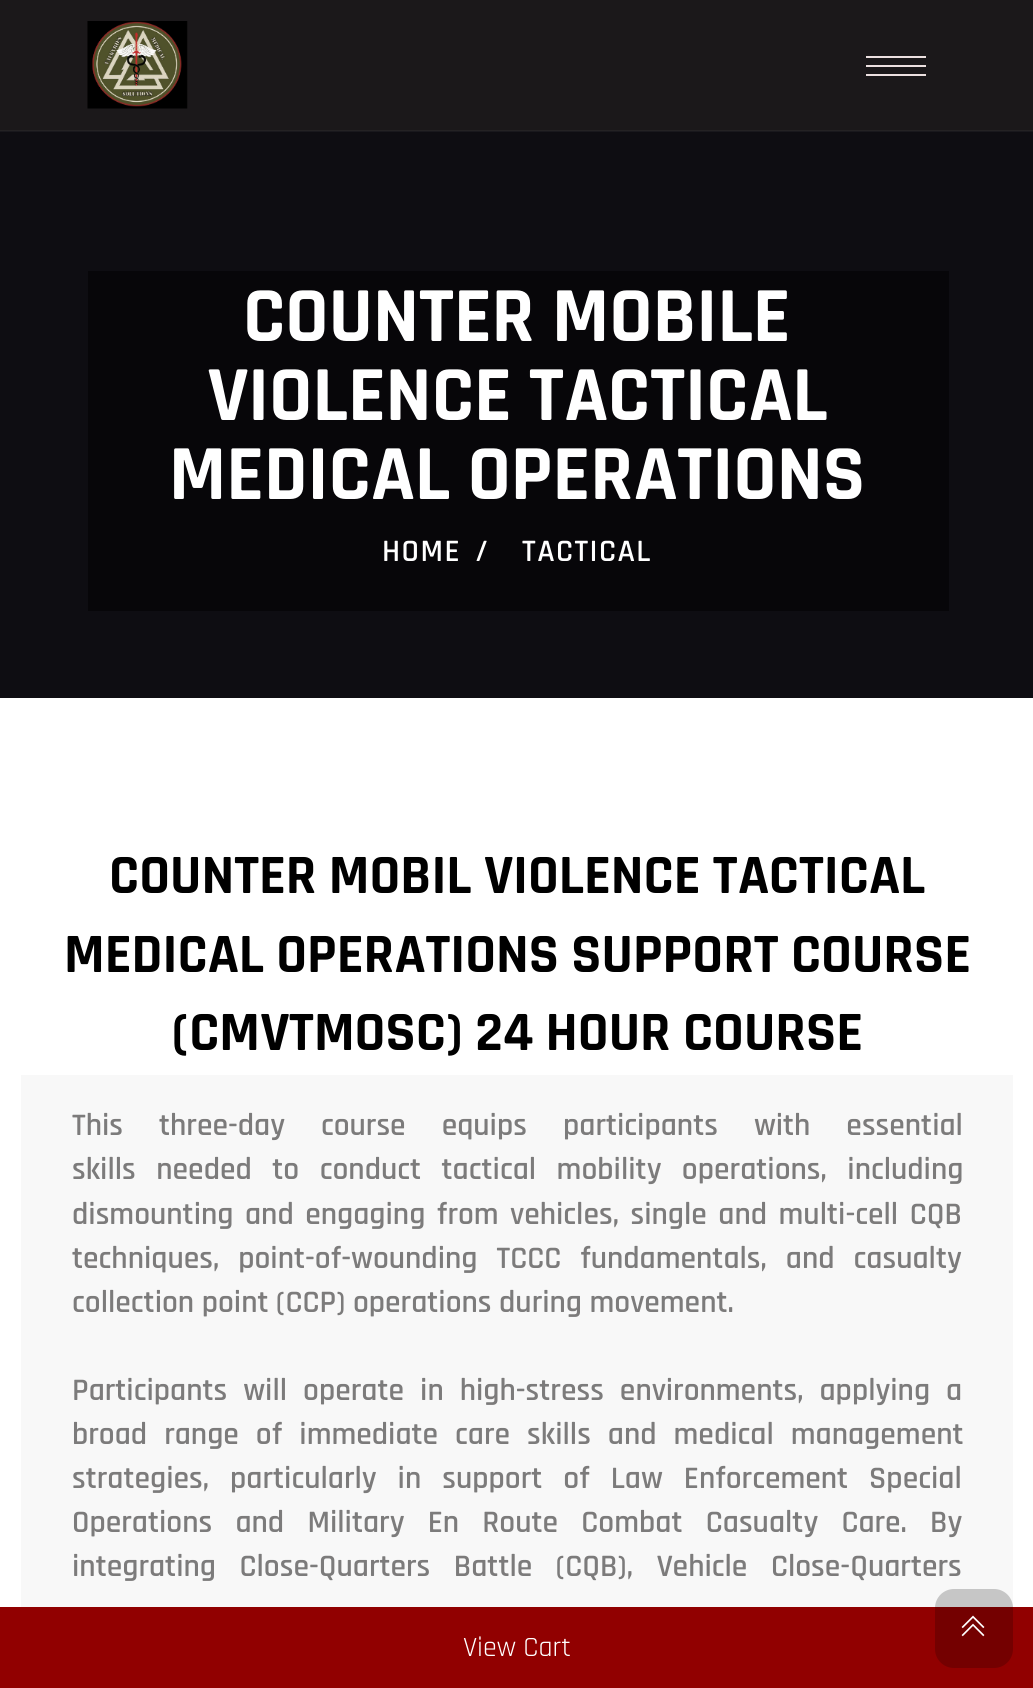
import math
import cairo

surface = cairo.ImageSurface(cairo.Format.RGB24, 1033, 1688)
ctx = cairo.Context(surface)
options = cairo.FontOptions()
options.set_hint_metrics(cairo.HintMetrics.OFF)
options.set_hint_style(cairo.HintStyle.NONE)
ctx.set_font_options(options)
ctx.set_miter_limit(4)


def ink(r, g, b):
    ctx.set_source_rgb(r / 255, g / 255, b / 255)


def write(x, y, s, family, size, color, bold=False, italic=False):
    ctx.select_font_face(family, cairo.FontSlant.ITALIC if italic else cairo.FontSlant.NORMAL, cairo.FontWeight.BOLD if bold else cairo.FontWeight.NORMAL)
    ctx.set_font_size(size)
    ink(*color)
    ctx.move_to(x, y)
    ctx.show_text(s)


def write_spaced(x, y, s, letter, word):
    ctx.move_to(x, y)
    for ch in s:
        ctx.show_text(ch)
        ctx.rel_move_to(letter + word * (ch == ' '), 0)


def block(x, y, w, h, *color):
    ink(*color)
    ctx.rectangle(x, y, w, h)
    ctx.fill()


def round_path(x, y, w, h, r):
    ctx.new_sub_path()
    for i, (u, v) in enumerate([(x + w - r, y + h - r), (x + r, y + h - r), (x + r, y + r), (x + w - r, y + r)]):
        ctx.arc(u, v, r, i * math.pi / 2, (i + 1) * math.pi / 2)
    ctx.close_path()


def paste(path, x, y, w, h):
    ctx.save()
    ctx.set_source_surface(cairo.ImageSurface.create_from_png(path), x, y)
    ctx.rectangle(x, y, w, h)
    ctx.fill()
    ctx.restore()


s1 = dict(family="Rajdhani", size=78.75, color=(255, 255, 255), bold=True)
s2 = dict(family="Rajdhani", size=56, color=(0, 0, 0), bold=True)
s3 = dict(family="Rajdhani SemiBold", size=31.5, color=(124, 123, 123))
s4 = dict(family="Rajdhani", size=28, color=(255, 255, 255))

ink(255, 255, 255)
ctx.paint()
block(0, 0, 1033, 130, 27, 24, 26)
block(0, 130, 1033, 1, 36, 34, 36)
paste("pic1.png", 87, 21, 101, 88)
block(866, 56, 60, 2, 236, 224, 224)
block(866, 65, 60, 2, 236, 224, 224)
block(866, 74, 60, 2, 236, 224, 224)
block(0, 132, 1033, 566, 14, 13, 18)
block(0, 131, 1033, 1, 25, 24, 29)
block(88, 271, 861, 340, 7, 6, 9)
write(243, 341, "COUNTER MOBILE", **s1)
write(207, 420, "VIOLENCE TACTICAL", **s1)
write(169, 499, "MEDICAL OPERATIONS", **s1)
ctx.select_font_face("Rajdhani SemiBold")
ctx.set_font_size(31.5)
write_spaced(382, 561, "HOME", 1.5, 0)
write_spaced(475, 561, "/", 1.5, 0)
write_spaced(522, 561, "TACTICAL", 1.5, 0)
write(109, 893, "COUNTER MOBIL VIOLENCE TACTICAL", **s2)
write(64, 972, "MEDICAL OPERATIONS SUPPORT COURSE", **s2)
write(172, 1050, "(CMVTMOSC) 24 HOUR COURSE", **s2)
block(21, 1075, 992, 532, 248, 248, 248)
ctx.select_font_face("Rajdhani SemiBold")
ctx.set_font_size(31.5)
ink(124, 123, 123)
write_spaced(72, 1135, "This three-day course equips participants with essential", 0, 28.5)
write_spaced(72, 1179, "skills needed to conduct tactical mobility operations, including", 0, 13)
write_spaced(72, 1224, "dismounting and engaging from vehicles, single and multi-cell CQB", 0, 4)
write_spaced(72, 1268, "techniques, point-of-wounding TCCC fundamentals, and casualty", 0, 11.5)
write(72, 1312, "collection point (CCP) operations during movement.", **s3)
write_spaced(72, 1400, "Participants will operate in high-stress environments, applying a", 0, 8.5)
write_spaced(72, 1444, "broad range of immediate care skills and medical management", 0, 9.5)
write_spaced(72, 1488, "strategies, particularly in support of Law Enforcement Special", 0, 13.5)
write_spaced(72, 1532, "Operations and Military En Route Combat Casualty Care. By", 0, 15.75)
write_spaced(72, 1576, "integrating Close-Quarters Battle (CQB), Vehicle Close-Quarters", 0, 16)
block(0, 1607, 1033, 81, 145, 0, 0)
write(463, 1656, "View Cart", **s4)
ctx.set_source_rgba(0, 0, 0, 0.2)
round_path(935, 1589, 78, 79, 19)
ctx.fill()
paste("pic2.png", 961, 1615, 24, 22)
surface.write_to_png("screenshot.png")
